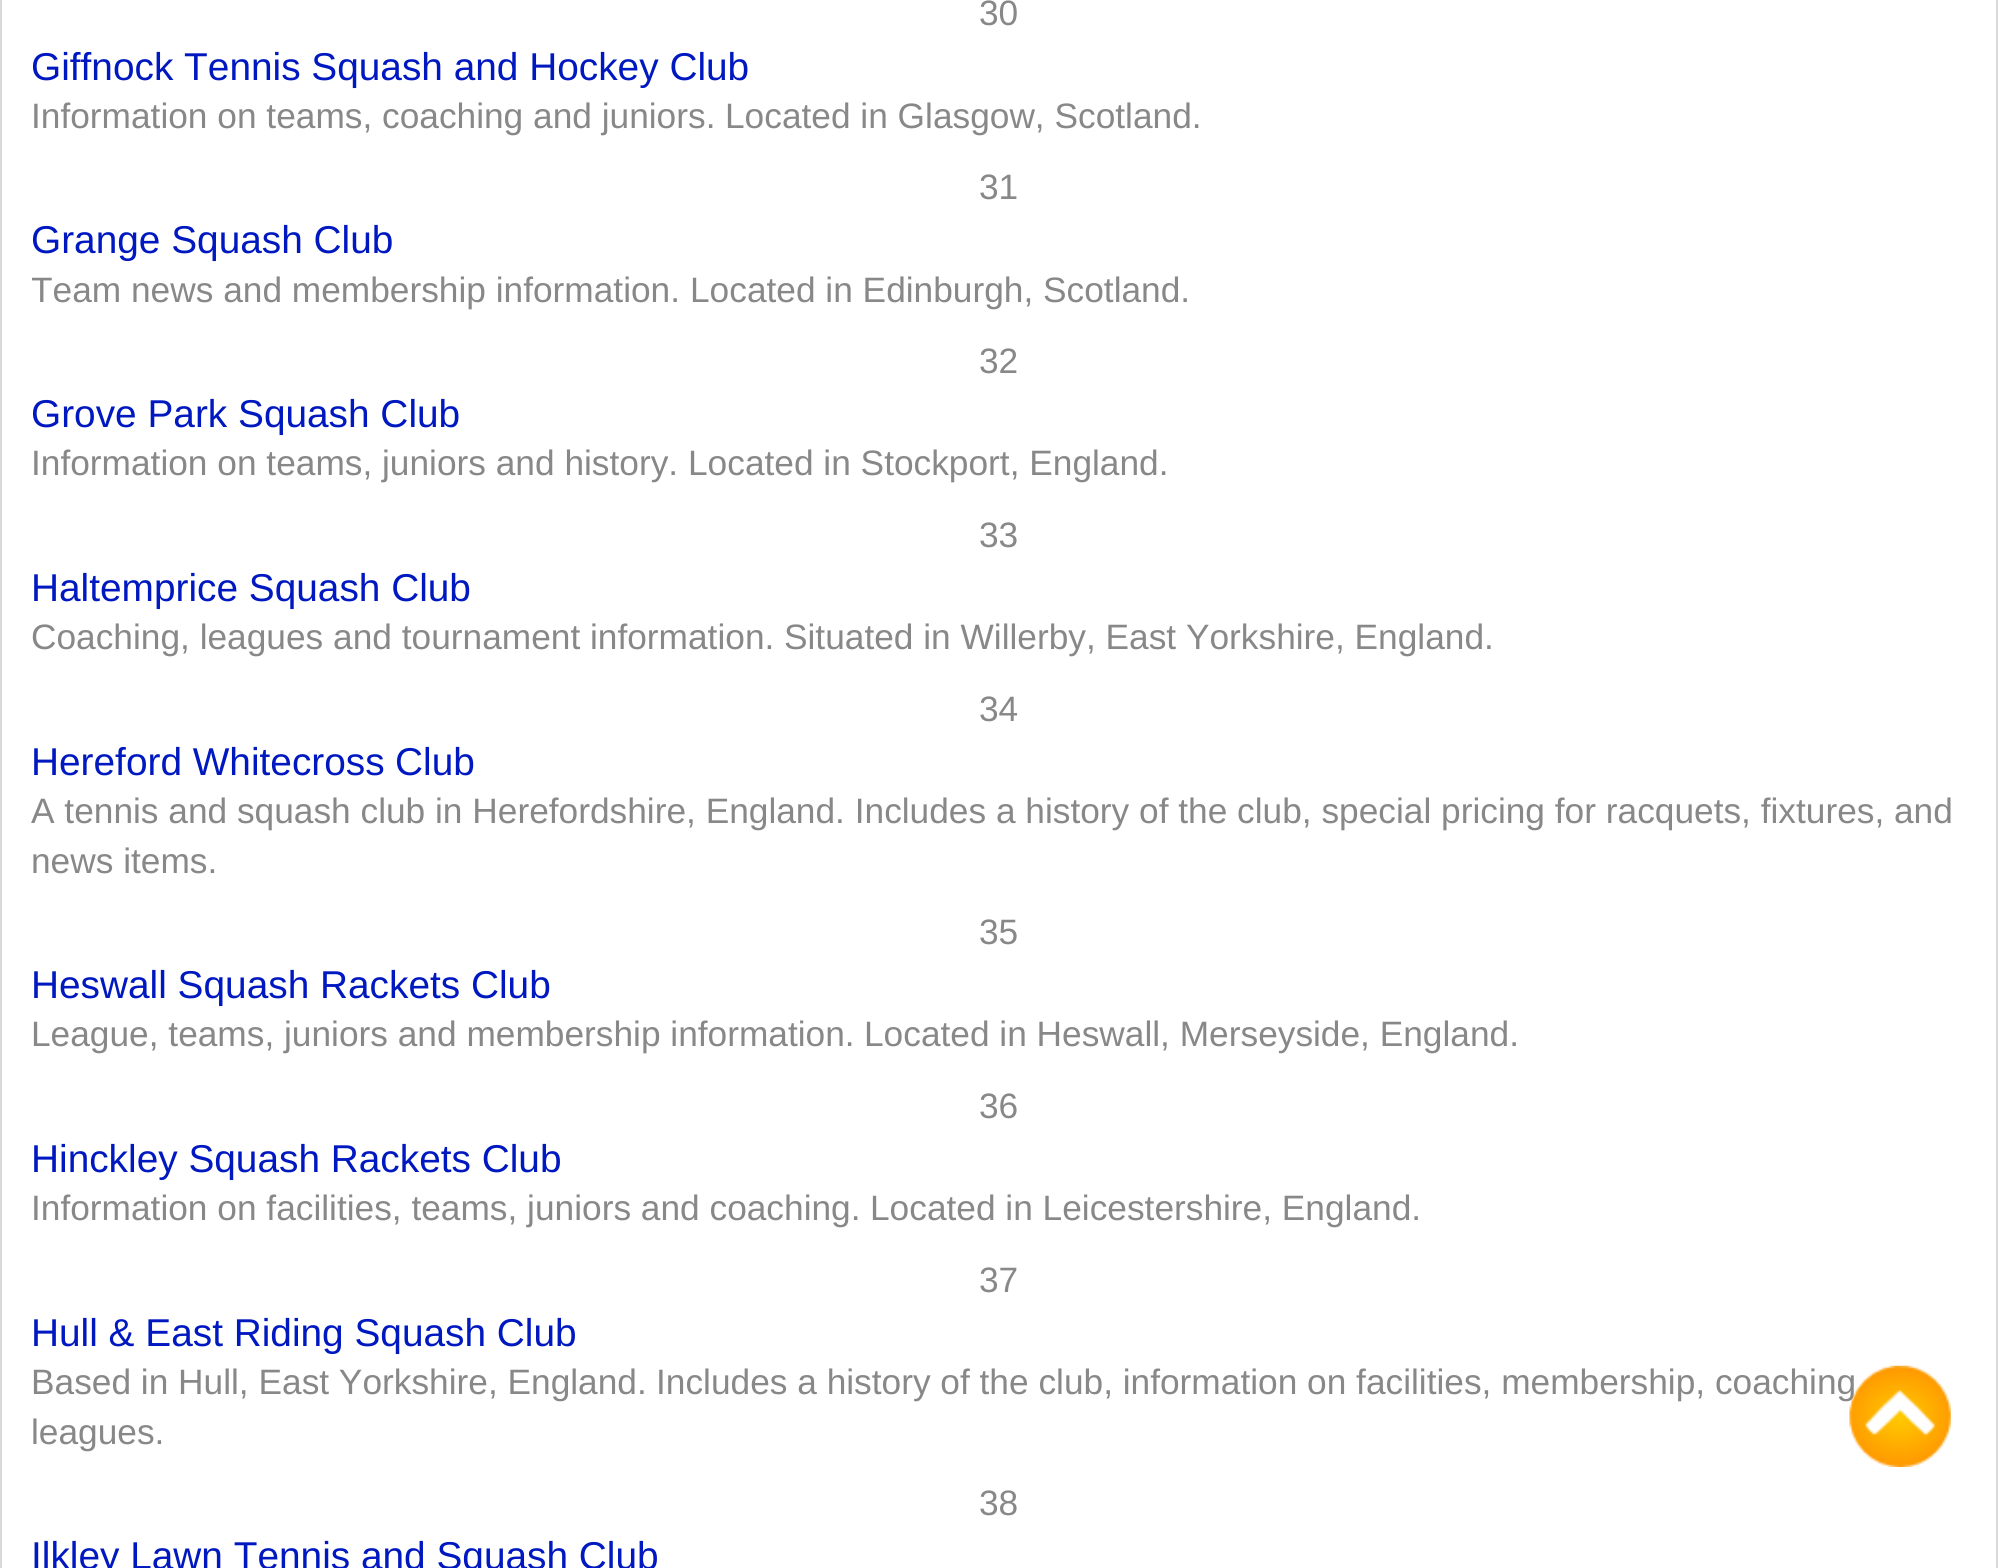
import math
import cairo

surface = cairo.ImageSurface(cairo.Format.RGB24, 1998, 1568)
ctx = cairo.Context(surface)
options = cairo.FontOptions()
options.set_hint_metrics(cairo.HintMetrics.OFF)
options.set_hint_style(cairo.HintStyle.NONE)
ctx.set_font_options(options)
ctx.set_miter_limit(4)


def ink(r, g, b):
    ctx.set_source_rgb(r / 255, g / 255, b / 255)


def write(x, y, s, family, size, color, bold=False, italic=False):
    ctx.select_font_face(family, cairo.FontSlant.ITALIC if italic else cairo.FontSlant.NORMAL, cairo.FontWeight.BOLD if bold else cairo.FontWeight.NORMAL)
    ctx.set_font_size(size)
    ink(*color)
    ctx.move_to(x, y)
    ctx.show_text(s)


def block(x, y, w, h, *color):
    ink(*color)
    ctx.rectangle(x, y, w, h)
    ctx.fill()


def paste(path, x, y, w, h):
    ctx.save()
    ctx.set_source_surface(cairo.ImageSurface.create_from_png(path), x, y)
    ctx.rectangle(x, y, w, h)
    ctx.fill()
    ctx.restore()


s1 = dict(family="Liberation Sans", size=35.28, color=(136, 136, 136))
s2 = dict(family="Liberation Sans", size=38.8, color=(0, 24, 192))

ink(255, 255, 255)
ctx.paint()
block(1996, 0, 2, 1568, 217, 217, 217)
block(0, 0, 2, 1568, 217, 217, 217)
write(979, 25, "30", **s1)
write(31, 80, "Giffnock Tennis Squash and Hockey Club", **s2)
write(31, 128, "Information on teams, coaching and juniors.", **s1)
write(725, 128, "Located in Glasgow, Scotland.", **s1)
write(979, 199, "31", **s1)
write(31, 253, "Grange Squash Club", **s2)
ctx.save()
ctx.rectangle(32, 0, 1935, 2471)
ctx.clip()
write(31, 302, "Team news and membership information.", **s1)
ctx.restore()
write(690, 302, "Located in Edinburgh, Scotland.", **s1)
write(979, 373, "32", **s1)
write(31, 427, "Grove Park Squash Club", **s2)
write(31, 475, "Information on teams, juniors and history.", **s1)
write(688, 475, "Located in Stockport, England.", **s1)
write(979, 547, "33", **s1)
write(31, 601, "Haltemprice Squash Club", **s2)
write(31, 649, "Coaching, leagues and tournament information.", **s1)
write(784, 649, "Situated in Willerby, East Yorkshire, England.", **s1)
write(979, 721, "34", **s1)
write(31, 775, "Hereford Whitecross", **s2)
write(395, 775, "Club", **s2)
write(31, 823, "A tennis and squash club in Herefordshire, England. Includes a history of the club, special pricing for racquets, fixtures, and", **s1)
write(31, 873, "news items.", **s1)
write(979, 944, "35", **s1)
write(31, 998, "Heswall Squash Rackets Club", **s2)
write(31, 1046, "League, teams, juniors and membership information.", **s1)
write(864, 1046, "Located in Heswall, Merseyside, England.", **s1)
write(979, 1118, "36", **s1)
write(31, 1172, "Hinckley Squash Rackets Club", **s2)
write(31, 1220, "Information on facilities, teams, juniors and coaching.", **s1)
write(870, 1220, "Located in Leicestershire, England.", **s1)
write(979, 1292, "37", **s1)
write(31, 1346, "Hull & East Riding Squash Club", **s2)
write(31, 1394, "Based in Hull, East Yorkshire, England.", **s1)
write(656, 1394, "Includes a history of the club, information on facilities, membership, coaching", **s1)
write(31, 1444, "leagues.", **s1)
write(979, 1515, "38", **s1)
write(31, 1569, "Ilkley Lawn Tennis and Squash Club", **s2)
paste("pic1.png", 1849, 1365, 102, 102)
surface.write_to_png("screenshot.png")
